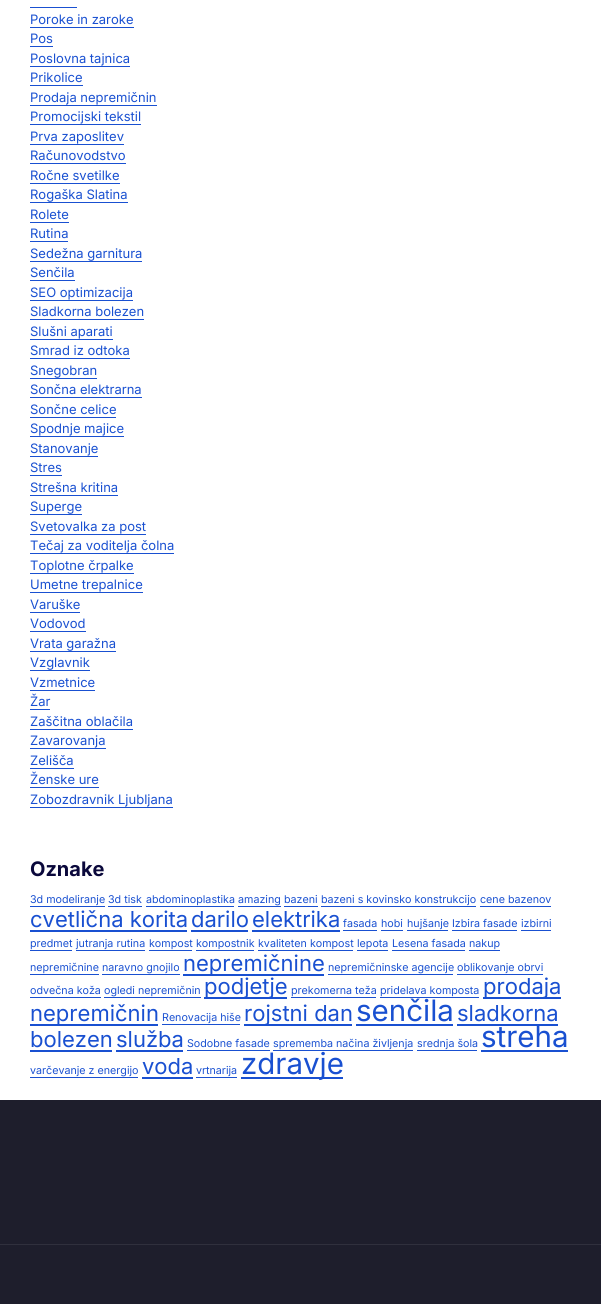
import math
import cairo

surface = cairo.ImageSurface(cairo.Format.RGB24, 601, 1304)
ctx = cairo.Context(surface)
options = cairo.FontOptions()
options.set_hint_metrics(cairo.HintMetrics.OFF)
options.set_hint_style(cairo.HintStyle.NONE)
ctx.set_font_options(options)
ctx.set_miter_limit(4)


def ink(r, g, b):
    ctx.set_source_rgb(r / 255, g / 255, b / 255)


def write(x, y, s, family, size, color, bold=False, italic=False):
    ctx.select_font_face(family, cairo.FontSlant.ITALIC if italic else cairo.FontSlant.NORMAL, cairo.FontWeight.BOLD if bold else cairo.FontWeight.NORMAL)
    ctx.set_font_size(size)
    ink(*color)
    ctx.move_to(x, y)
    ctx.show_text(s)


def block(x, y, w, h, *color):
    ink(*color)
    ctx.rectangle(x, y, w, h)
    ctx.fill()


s1 = dict(family="Inter", size=13, color=(25, 80, 209))
s2 = dict(family="Inter", size=20, color=(10, 8, 59), bold=True)
s3 = dict(family="Inter", size=10.7, color=(25, 80, 209))
s4 = dict(family="Inter", size=22, color=(25, 80, 209))
s5 = dict(family="Inter", size=29.5, color=(25, 80, 209))

ink(255, 255, 255)
ctx.paint()
block(30, 7, 47, 1, 25, 80, 209)
write(30, 24, "Poroke in zaroke", **s1)
block(30, 27, 104, 1, 25, 80, 209)
write(30, 43, "Pos", **s1)
block(30, 46, 23, 1, 25, 80, 209)
write(30, 63, "Poslovna tajnica", **s1)
block(30, 66, 100, 1, 25, 80, 209)
write(30, 82, "Prikolice", **s1)
block(30, 85, 53, 1, 25, 80, 209)
write(30, 102, "Prodaja nepremičnin", **s1)
block(30, 105, 127, 1, 25, 80, 209)
write(30, 121, "Promocijski tekstil", **s1)
block(30, 124, 111, 1, 25, 80, 209)
write(30, 141, "Prva zaposlitev", **s1)
block(30, 144, 94, 1, 25, 80, 209)
write(30, 160, "Računovodstvo", **s1)
block(30, 163, 96, 1, 25, 80, 209)
write(30, 180, "Ročne svetilke", **s1)
block(30, 183, 90, 1, 25, 80, 209)
write(30, 199, "Rogaška Slatina", **s1)
block(30, 202, 98, 1, 25, 80, 209)
write(30, 219, "Rolete", **s1)
block(30, 222, 39, 1, 25, 80, 209)
write(30, 238, "Rutina", **s1)
block(30, 241, 38, 1, 25, 80, 209)
write(30, 258, "Sedežna garnitura", **s1)
block(30, 261, 112, 1, 25, 80, 209)
write(30, 277, "Senčila", **s1)
block(30, 280, 45, 1, 25, 80, 209)
write(30, 297, "SEO optimizacija", **s1)
block(30, 300, 103, 1, 25, 80, 209)
write(30, 316, "Sladkorna bolezen", **s1)
block(30, 319, 114, 1, 25, 80, 209)
write(30, 336, "Slušni aparati", **s1)
block(30, 339, 83, 1, 25, 80, 209)
write(30, 355, "Smrad iz odtoka", **s1)
block(30, 358, 100, 1, 25, 80, 209)
write(30, 375, "Snegobran", **s1)
block(30, 378, 67, 1, 25, 80, 209)
write(30, 394, "Sončna elektrarna", **s1)
block(30, 397, 112, 1, 25, 80, 209)
write(30, 414, "Sončne celice", **s1)
block(30, 417, 86, 1, 25, 80, 209)
write(30, 433, "Spodnje majice", **s1)
block(30, 436, 94, 1, 25, 80, 209)
write(30, 453, "Stanovanje", **s1)
block(30, 456, 68, 1, 25, 80, 209)
write(30, 472, "Stres", **s1)
block(30, 475, 32, 1, 25, 80, 209)
write(30, 492, "Strešna kritina", **s1)
block(30, 495, 88, 1, 25, 80, 209)
write(30, 511, "Superge", **s1)
block(30, 514, 52, 1, 25, 80, 209)
write(30, 531, "Svetovalka za post", **s1)
block(30, 534, 116, 1, 25, 80, 209)
write(30, 550, "Tečaj za voditelja čolna", **s1)
block(30, 553, 144, 1, 25, 80, 209)
write(30, 570, "Toplotne črpalke", **s1)
block(30, 573, 104, 1, 25, 80, 209)
write(30, 589, "Umetne trepalnice", **s1)
block(30, 592, 113, 1, 25, 80, 209)
write(30, 609, "Varuške", **s1)
block(30, 612, 50, 1, 25, 80, 209)
write(30, 628, "Vodovod", **s1)
block(30, 631, 56, 1, 25, 80, 209)
write(30, 648, "Vrata garažna", **s1)
block(30, 651, 86, 1, 25, 80, 209)
write(30, 667, "Vzglavnik", **s1)
block(30, 670, 60, 1, 25, 80, 209)
write(30, 687, "Vzmetnice", **s1)
block(30, 690, 65, 1, 25, 80, 209)
write(30, 706, "Žar", **s1)
block(30, 709, 20, 1, 25, 80, 209)
write(30, 726, "Zaščitna oblačila", **s1)
block(30, 729, 103, 1, 25, 80, 209)
write(30, 745, "Zavarovanja", **s1)
block(30, 748, 76, 1, 25, 80, 209)
write(30, 765, "Zelišča", **s1)
block(30, 768, 44, 1, 25, 80, 209)
write(30, 784, "Ženske ure", **s1)
block(30, 787, 69, 1, 25, 80, 209)
write(30, 804, "Zobozdravnik Ljubljana", **s1)
block(30, 807, 143, 1, 25, 80, 209)
write(30, 876, "Oznake", **s2)
write(30, 903, "3d modeliranje", **s3)
block(30, 906, 75, 1, 25, 80, 209)
write(108, 903, "3d tisk", **s3)
block(108, 906, 34, 1, 25, 80, 209)
write(146, 903, "abdominoplastika", **s3)
block(146, 906, 88, 1, 25, 80, 209)
write(238, 903, "amazing", **s3)
block(238, 906, 43, 1, 25, 80, 209)
write(284, 903, "bazeni", **s3)
block(284, 906, 34, 1, 25, 80, 209)
write(321, 903, "bazeni s kovinsko konstrukcijo", **s3)
block(321, 906, 155, 1, 25, 80, 209)
write(480, 903, "cene bazenov", **s3)
block(480, 906, 71, 1, 25, 80, 209)
write(30, 927, "cvetlična korita", **s4)
block(30, 930, 157, 2, 25, 80, 209)
write(191, 927, "darilo", **s4)
block(191, 930, 57, 2, 25, 80, 209)
write(252, 927, "elektrika", **s4)
block(252, 930, 88, 2, 25, 80, 209)
write(343, 927, "fasada", **s3)
block(343, 930, 34, 1, 25, 80, 209)
write(381, 927, "hobi", **s3)
block(381, 930, 22, 1, 25, 80, 209)
write(407, 927, "hujšanje", **s3)
block(407, 930, 41, 1, 25, 80, 209)
write(452, 927, "Izbira fasade", **s3)
block(452, 930, 65, 1, 25, 80, 209)
write(521, 927, "izbirni", **s3)
block(521, 930, 30, 1, 25, 80, 209)
write(30, 947, "predmet", **s3)
block(30, 950, 42, 1, 25, 80, 209)
write(76, 947, "jutranja rutina", **s3)
block(76, 950, 69, 1, 25, 80, 209)
write(149, 947, "kompost", **s3)
block(149, 950, 43, 1, 25, 80, 209)
write(196, 947, "kompostnik", **s3)
block(196, 950, 58, 1, 25, 80, 209)
write(258, 947, "kvaliteten kompost", **s3)
block(258, 950, 95, 1, 25, 80, 209)
write(357, 947, "lepota", **s3)
block(357, 950, 31, 1, 25, 80, 209)
write(392, 947, "Lesena fasada", **s3)
block(392, 950, 73, 1, 25, 80, 209)
write(469, 947, "nakup", **s3)
block(469, 950, 31, 1, 25, 80, 209)
write(30, 971, "nepremičnine", **s3)
block(30, 974, 69, 1, 25, 80, 209)
write(102, 971, "naravno gnojilo", **s3)
block(102, 974, 78, 1, 25, 80, 209)
block(183, 974, 141, 2, 25, 80, 209)
write(183, 971, "nepremičnine", **s4)
write(328, 971, "nepremičninske agencije", **s3)
block(328, 974, 125, 1, 25, 80, 209)
write(457, 971, "oblikovanje obrvi", **s3)
block(457, 974, 86, 1, 25, 80, 209)
write(30, 994, "odvečna koža", **s3)
block(30, 997, 71, 1, 25, 80, 209)
write(104, 994, "ogledi nepremičnin", **s3)
block(104, 997, 97, 1, 25, 80, 209)
block(204, 997, 83, 2, 25, 80, 209)
write(204, 994, "podjetje", **s4)
write(291, 994, "prekomerna teža", **s3)
block(291, 997, 85, 1, 25, 80, 209)
write(380, 994, "pridelava komposta", **s3)
block(380, 997, 99, 1, 25, 80, 209)
block(483, 997, 78, 2, 25, 80, 209)
write(483, 994, "prodaja", **s4)
block(30, 1024, 128, 2, 25, 80, 209)
write(30, 1021, "nepremičnin", **s4)
write(162, 1021, "Renovacija hiše", **s3)
block(162, 1024, 78, 1, 25, 80, 209)
block(244, 1024, 108, 2, 25, 80, 209)
write(244, 1021, "rojstni dan", **s4)
write(356, 1021, "senčila", **s5)
block(356, 1024, 97, 2, 25, 80, 209)
write(457, 1021, "sladkorna", **s4)
block(457, 1024, 101, 2, 25, 80, 209)
write(30, 1047, "bolezen", **s4)
block(30, 1050, 82, 2, 25, 80, 209)
write(116, 1047, "služba", **s4)
block(116, 1050, 67, 2, 25, 80, 209)
write(187, 1047, "Sodobne fasade", **s3)
block(187, 1050, 83, 1, 25, 80, 209)
write(273, 1047, "sprememba načina življenja", **s3)
block(273, 1050, 140, 1, 25, 80, 209)
write(417, 1047, "srednja šola", **s3)
block(417, 1050, 60, 1, 25, 80, 209)
write(481, 1047, "streha", **s5)
block(481, 1050, 87, 2, 25, 80, 209)
write(30, 1074, "varčevanje z energijo", **s3)
block(30, 1077, 108, 1, 25, 80, 209)
write(142, 1074, "voda", **s4)
block(142, 1077, 51, 2, 25, 80, 209)
write(196, 1074, "vrtnarija", **s3)
block(196, 1077, 41, 1, 25, 80, 209)
block(241, 1077, 102, 2, 25, 80, 209)
write(241, 1074, "zdravje", **s5)
block(0, 1100, 601, 204, 30, 30, 44)
block(0, 1244, 601, 1, 48, 48, 61)
surface.write_to_png("screenshot.png")
